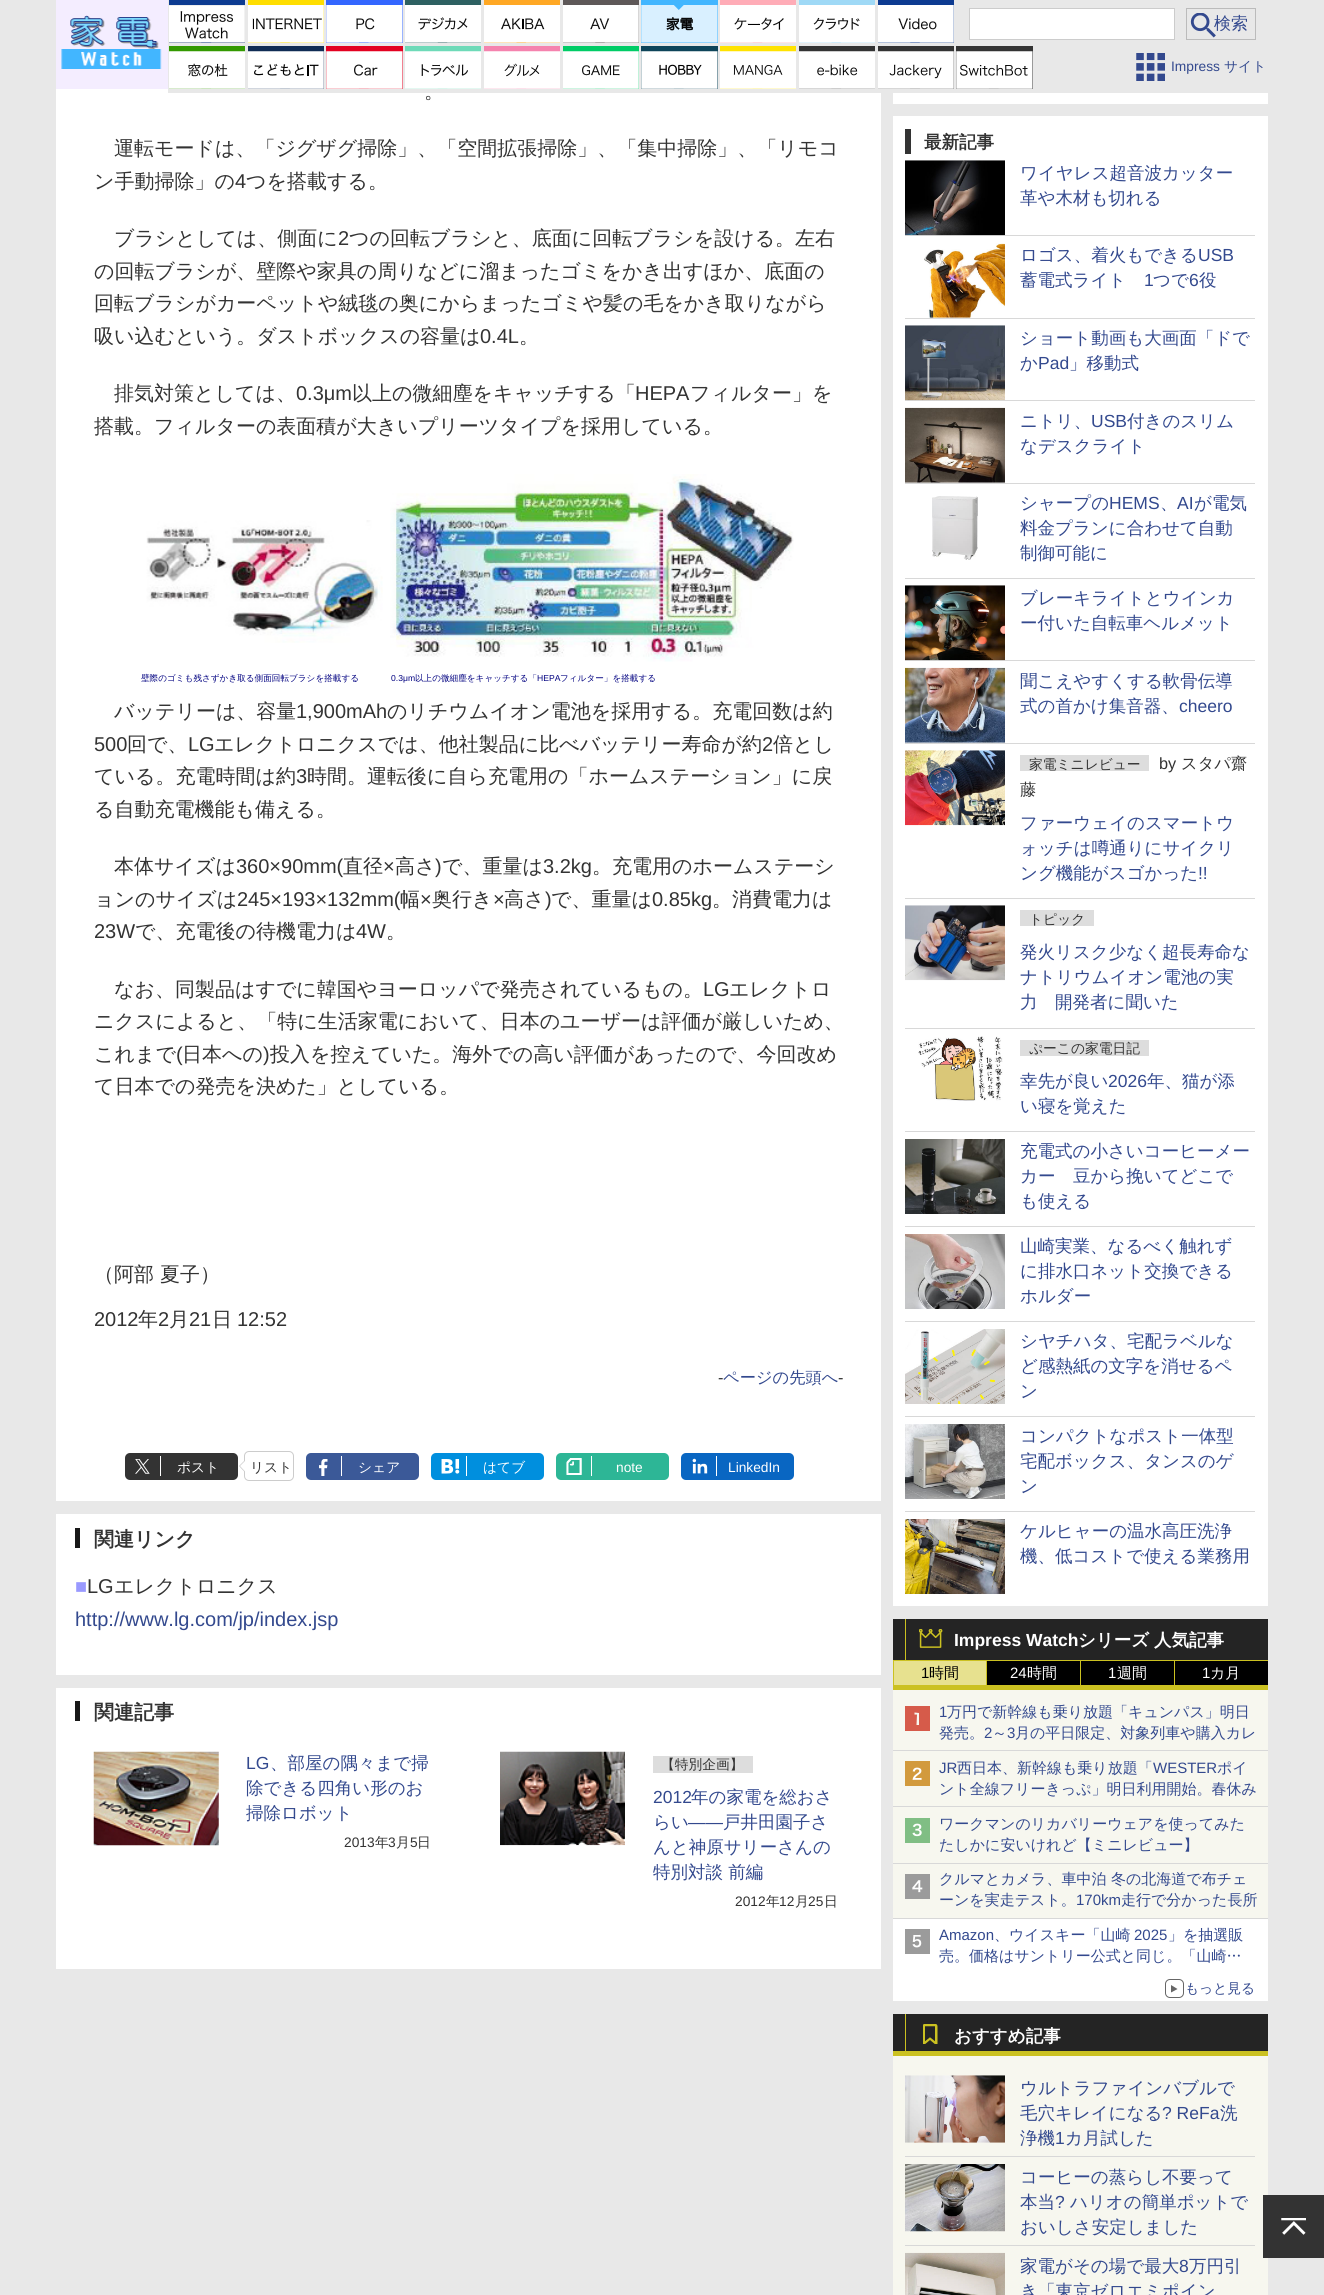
import math
import cairo

surface = cairo.ImageSurface(cairo.Format.RGB24, 1324, 2295)
ctx = cairo.Context(surface)
options = cairo.FontOptions()
options.set_hint_metrics(cairo.HintMetrics.OFF)
options.set_hint_style(cairo.HintStyle.NONE)
ctx.set_font_options(options)
ctx.set_miter_limit(4)


def ink(r, g, b):
    ctx.set_source_rgb(r / 255, g / 255, b / 255)


def write(x, y, s, family, size, color, bold=False, italic=False):
    ctx.select_font_face(family, cairo.FontSlant.ITALIC if italic else cairo.FontSlant.NORMAL, cairo.FontWeight.BOLD if bold else cairo.FontWeight.NORMAL)
    ctx.set_font_size(size)
    ink(*color)
    ctx.move_to(x, y)
    ctx.show_text(s)


def block(x, y, w, h, *color):
    ink(*color)
    ctx.rectangle(x, y, w, h)
    ctx.fill()


def round_path(x, y, w, h, r):
    ctx.new_sub_path()
    for i, (u, v) in enumerate([(x + w - r, y + h - r), (x + r, y + h - r), (x + r, y + r), (x + w - r, y + r)]):
        ctx.arc(u, v, r, i * math.pi / 2, (i + 1) * math.pi / 2)
    ctx.close_path()


def paste(path, x, y, w, h):
    ctx.save()
    ctx.set_source_surface(cairo.ImageSurface.create_from_png(path), x, y)
    ctx.rectangle(x, y, w, h)
    ctx.fill()
    ctx.restore()


s1 = dict(family="WenQuanYi Zen Hei Medium", size=17, color=(51, 73, 142))
s2 = dict(family="Liberation Sans", size=13.75, color=(51, 73, 142))
s3 = dict(family="WenQuanYi Zen Hei Medium", size=13.75, color=(51, 73, 142))
s4 = dict(family="WenQuanYi Zen Hei Medium", size=20, color=(51, 51, 51))
s5 = dict(family="Liberation Sans", size=20, color=(51, 51, 51))
s6 = dict(family="WenQuanYi Zen Hei Medium", size=8.6, color=(0, 0, 128))
s7 = dict(family="Liberation Sans", size=8.6, color=(0, 0, 128))
s8 = dict(family="Liberation Sans", size=16.25, color=(51, 51, 51))
s9 = dict(family="WenQuanYi Zen Hei Medium", size=16.25, color=(51, 73, 142))
s10 = dict(family="WenQuanYi Zen Hei Medium", size=13.75, color=(255, 255, 255))
s11 = dict(family="WenQuanYi Zen Hei Medium", size=13.75, color=(51, 51, 51))
s12 = dict(family="Liberation Sans", size=13.75, color=(255, 255, 255))
s13 = dict(family="WenQuanYi Zen Hei", size=20, color=(51, 51, 51), bold=True)
s14 = dict(family="Liberation Sans", size=20, color=(153, 153, 255))
s15 = dict(family="Liberation Sans", size=20, color=(51, 73, 142))
s16 = dict(family="Liberation Sans", size=17.5, color=(51, 73, 142))
s17 = dict(family="WenQuanYi Zen Hei Medium", size=17.5, color=(51, 73, 142))
s18 = dict(family="Liberation Sans", size=13.75, color=(51, 51, 51))
s19 = dict(family="WenQuanYi Zen Hei", size=17.5, color=(51, 51, 51), bold=True)
s20 = dict(family="WenQuanYi Zen Hei Medium", size=16.25, color=(51, 51, 51))
s21 = dict(family="Liberation Sans", size=17.5, color=(255, 255, 255), bold=True)
s22 = dict(family="WenQuanYi Zen Hei", size=17.5, color=(255, 255, 255), bold=True)
s23 = dict(family="Liberation Sans", size=15, color=(0, 0, 0))
s24 = dict(family="WenQuanYi Zen Hei Medium", size=15, color=(0, 0, 0))
s25 = dict(family="Liberation Sans", size=15, color=(255, 255, 255))
s26 = dict(family="WenQuanYi Zen Hei Medium", size=15, color=(255, 255, 255))
s27 = dict(family="Liberation Sans", size=15, color=(51, 73, 142))
s28 = dict(family="WenQuanYi Zen Hei Medium", size=15, color=(51, 73, 142))

ink(232, 232, 232)
ctx.paint()
block(56, 0, 112, 89, 244, 237, 255)
paste("pic1.png", 61, 15, 101, 54)
block(56, 89, 825, 1412, 255, 255, 255)
block(168, 89, 713, 4, 232, 232, 232)
block(169, 0, 76, 43, 13, 59, 145)
paste("pic2.png", 169, 5, 76, 38)
block(248, 0, 76, 43, 255, 222, 0)
paste("pic3.png", 248, 5, 76, 38)
block(326, 0, 77, 43, 51, 102, 255)
paste("pic4.png", 326, 5, 77, 38)
block(405, 0, 76, 43, 46, 97, 98)
paste("pic5.png", 405, 5, 76, 38)
block(484, 0, 76, 43, 255, 168, 36)
paste("pic6.png", 484, 5, 76, 38)
block(563, 0, 76, 43, 94, 88, 88)
paste("pic7.png", 563, 5, 76, 38)
block(641, 0, 77, 43, 66, 182, 255)
paste("pic8.png", 641, 5, 77, 38)
block(720, 0, 76, 43, 255, 172, 183)
paste("pic9.png", 720, 5, 76, 38)
block(799, 0, 76, 43, 159, 217, 246)
paste("pic10.png", 799, 5, 76, 38)
block(878, 0, 76, 43, 13, 59, 145)
paste("pic11.png", 878, 5, 76, 38)
ink(255, 255, 255)
ctx.rectangle(969.5, 8.5, 205, 31)
ctx.fill_preserve()
ink(204, 204, 204)
ctx.set_line_width(1)
ctx.stroke()
paste("pic12.png", 1190, 13, 26, 25)
ctx.rectangle(1186.5, 8.5, 69, 31)
ink(187, 187, 187)
ctx.stroke()
write(1214, 29, "検索", **s1)
block(169, 46, 76, 43, 51, 153, 0)
paste("pic13.png", 169, 51, 76, 38)
block(248, 46, 76, 43, 16, 44, 84)
paste("pic14.png", 248, 51, 76, 38)
block(326, 46, 77, 43, 227, 1, 33)
paste("pic15.png", 326, 51, 77, 38)
block(405, 46, 76, 43, 110, 218, 184)
paste("pic16.png", 405, 51, 76, 38)
block(484, 46, 76, 43, 245, 131, 174)
paste("pic17.png", 484, 51, 76, 38)
block(563, 46, 76, 43, 0, 204, 102)
paste("pic18.png", 563, 51, 76, 38)
block(641, 46, 77, 43, 14, 68, 89)
paste("pic19.png", 641, 51, 77, 38)
block(720, 46, 76, 43, 255, 226, 0)
paste("pic20.png", 720, 51, 76, 38)
block(799, 46, 76, 43, 51, 51, 51)
paste("pic21.png", 799, 51, 76, 38)
block(878, 46, 76, 43, 51, 51, 51)
paste("pic22.png", 878, 51, 76, 38)
block(956, 46, 77, 43, 51, 51, 51)
paste("pic23.png", 956, 51, 77, 38)
paste("pic24.png", 1136, 53, 29, 28)
write(1171, 71, "Impress", **s2)
write(1224, 71, "サイト", **s3)
write(424, 98, "。", **s4)
write(114, 155, "運転モードは、「ジグザグ掃除」、「空間拡張掃除」、「集中掃除」、「リモコ", **s4)
write(94, 188, "ン手動掃除」の", **s4)
write(235, 188, "4", **s5)
write(246, 188, "つを搭載する。", **s4)
write(114, 245, "ブラシとしては、側面に", **s4)
write(338, 245, "2", **s5)
write(349, 245, "つの回転ブラシと、底面に回転ブラシを設ける。左右", **s4)
write(94, 278, "の回転ブラシが、壁際や家具の周りなどに溜まったゴミをかき出すほか、底面の", **s4)
write(94, 310, "回転ブラシがカーペットや絨毯の奥にからまったゴミや髪の毛をかき取りながら", **s4)
write(94, 343, "吸い込むという。ダストボックスの容量は", **s4)
write(480, 343, "0.4L", **s5)
write(519, 343, "。", **s4)
write(114, 400, "排気対策としては、", **s4)
write(296, 400, "0.3μm", **s5)
write(352, 400, "以上の微細塵をキャッチする「", **s4)
write(635, 400, "HEPA", **s5)
write(690, 400, "フィルター」を", **s4)
write(94, 433, "搭載。フィルターの表面積が大きいプリーツタイプを採用している。", **s4)
paste("pic25.png", 146, 520, 237, 123)
paste("pic26.png", 390, 474, 404, 188)
write(141, 681, "壁際のゴミも残さずかき取る側面回転ブラシを搭載する", **s6)
write(391, 681, "0.3μm", **s7)
write(415, 681, "以上の微細塵をキャッチする「", **s6)
write(537, 681, "HEPA", **s7)
write(560, 681, "フィルター」を搭載する", **s6)
write(114, 718, "バッテリーは、容量", **s4)
write(296, 718, "1,900mAh", **s5)
write(387, 718, "のリチウムイオン電池を採用する。充電回数は約", **s4)
write(94, 751, "500", **s5)
write(127, 751, "回で、", **s4)
write(188, 751, "LG", **s5)
write(214, 751, "エレクトロニクスでは、他社製品に比べバッテリー寿命が約", **s4)
write(762, 751, "2", **s5)
write(773, 751, "倍とし", **s4)
write(94, 783, "ている。充電時間は約", **s4)
write(296, 783, "3", **s5)
write(307, 783, "時間。運転後に自ら充電用の「ホームステーション」に戻", **s4)
write(94, 816, "る自動充電機能も備える。", **s4)
write(114, 873, "本体サイズは", **s4)
write(236, 873, "360×90mm(", **s5)
write(343, 873, "直径", **s4)
write(383, 873, "×", **s5)
write(395, 873, "高さ", **s4)
write(435, 873, ")", **s5)
write(442, 873, "で、重量は", **s4)
write(543, 873, "3.2kg", **s5)
write(592, 873, "。充電用のホームステーシ", **s4)
write(94, 906, "ョンのサイズは", **s4)
write(237, 906, "245×193×132mm(", **s5)
write(400, 906, "幅", **s4)
write(420, 906, "×", **s5)
write(432, 906, "奥行き", **s4)
write(493, 906, "×", **s5)
write(504, 906, "高さ", **s4)
write(545, 906, ")", **s5)
write(551, 906, "で、重量は", **s4)
write(652, 906, "0.85kg", **s5)
write(712, 906, "。消費電力は", **s4)
write(94, 938, "23W", **s5)
write(135, 938, "で、充電後の待機電力は", **s4)
write(356, 938, "4W", **s5)
write(386, 938, "。", **s4)
write(114, 996, "なお、同製品はすでに韓国やヨーロッパで発売されているもの。", **s4)
write(703, 996, "LG", **s5)
write(729, 996, "エレクトロ", **s4)
write(94, 1028, "ニクスによると、「特に生活家電において、日本のユーザーは評価が厳しいため、", **s4)
write(94, 1061, "これまで", **s4)
write(176, 1061, "(", **s5)
write(182, 1061, "日本への", **s4)
write(263, 1061, ")", **s5)
write(270, 1061, "投入を控えていた。海外での高い評価があったので、今回改め", **s4)
write(94, 1093, "て日本での発売を決めた」としている。", **s4)
write(94, 1281, "（阿部 夏子）", **s4)
write(94, 1326, "2012", **s5)
write(138, 1326, "年", **s4)
write(158, 1326, "2", **s5)
write(169, 1326, "月", **s4)
write(189, 1326, "21", **s5)
write(212, 1326, "日", **s4)
write(237, 1326, "12:52", **s5)
write(718, 1383, "-", **s8)
write(723, 1383, "ページの先頭へ", **s9)
write(838, 1383, "-", **s8)
round_path(125, 1453, 113, 27, 5)
ctx.fill()
paste("pic27.png", 135, 1459, 15, 15)
block(160, 1456, 1, 20, 255, 255, 255)
write(177, 1472, "ポスト", **s10)
round_path(244.5, 1451.5, 49, 29, 4.5)
ink(204, 204, 204)
ctx.stroke()
ctx.new_path()
ctx.move_to(245, 1460)
ctx.line_to(245, 1472.5)
ctx.line_to(239, 1466)
ctx.close_path()
ctx.fill()
ink(255, 255, 255)
ctx.new_path()
ctx.move_to(246, 1460)
ctx.line_to(246, 1472.5)
ctx.line_to(240, 1466)
ctx.close_path()
ctx.fill()
write(250, 1472, "リスト", **s11)
ink(59, 89, 152)
round_path(306, 1453, 113, 27, 5)
ctx.fill()
paste("pic28.png", 319, 1459, 9, 17)
block(341, 1456, 1, 20, 255, 255, 255)
write(358, 1472, "シェア", **s10)
ink(0, 143, 222)
round_path(431, 1453, 113, 27, 5)
ctx.fill()
paste("pic29.png", 441, 1459, 19, 15)
block(466, 1456, 1, 20, 255, 255, 255)
write(483, 1472, "はてブ", **s10)
ink(45, 182, 150)
round_path(556, 1453, 113, 27, 5)
ctx.fill()
paste("pic30.png", 566, 1458, 16, 17)
block(591, 1456, 1, 20, 255, 255, 255)
write(616, 1472, "note", **s12)
ink(9, 102, 194)
round_path(681, 1453, 113, 27, 5)
ctx.fill()
paste("pic31.png", 692, 1458, 16, 16)
block(716, 1456, 1, 20, 255, 255, 255)
write(728, 1472, "LinkedIn", **s12)
block(56, 1514, 825, 161, 255, 255, 255)
block(75, 1528, 5, 20, 24, 24, 24)
write(94, 1546, "関連リンク", **s13)
write(75, 1593, "■", **s14)
write(87, 1593, "LG", **s5)
write(114, 1593, "エレクトロニクス", **s4)
write(75, 1626, "http://www.lg.com/jp/index.jsp", **s15)
block(56, 1688, 825, 281, 255, 255, 255)
block(75, 1701, 5, 20, 24, 24, 24)
write(94, 1719, "関連記事", **s13)
paste("pic32.png", 93, 1751, 126, 95)
write(246, 1769, "LG", **s16)
write(270, 1769, "、部屋の隅々まで掃", **s17)
write(246, 1794, "除できる四角い形のお", **s17)
write(246, 1819, "掃除ロボット", **s17)
write(344, 1847, "2013", **s18)
write(375, 1847, "年", **s11)
write(388, 1847, "3", **s18)
write(396, 1847, "月", **s11)
write(410, 1847, "5", **s18)
write(417, 1847, "日", **s11)
paste("pic33.png", 500, 1751, 125, 95)
block(653, 1756, 100, 17, 221, 221, 221)
write(661, 1769, "【特別企画】", **s11)
write(653, 1803, "2012", **s16)
write(691, 1803, "年の家電を総おさ", **s17)
write(653, 1828, "らい", **s17)
write(688, 1828, "――", **s16)
write(723, 1828, "戸井田園子さ", **s17)
write(653, 1853, "んと神原サリーさんの", **s17)
ctx.save()
ctx.rectangle(653, 1751, 203, 168)
ctx.clip()
write(653, 1878, "特別対談 前編", **s17)
ctx.restore()
write(735, 1906, "2012", **s18)
write(766, 1906, "年", **s11)
write(779, 1906, "12", **s18)
write(795, 1906, "月", **s11)
write(808, 1906, "25", **s18)
write(824, 1906, "日", **s11)
block(893, 93, 375, 11, 255, 255, 255)
block(893, 116, 375, 1490, 255, 255, 255)
block(905, 129, 6, 25, 51, 51, 51)
write(924, 148, "最新記事", **s19)
block(905, 235, 350, 1, 216, 216, 216)
paste("pic34.png", 905, 160, 100, 76)
write(1020, 179, "ワイヤレス超音波カッター", **s17)
write(1020, 204, "革や木材も切れる", **s17)
block(905, 318, 350, 1, 216, 216, 216)
paste("pic35.png", 924, 243, 81, 75)
write(1020, 261, "ロゴス、着火もできる", **s17)
write(1198, 261, "USB", **s16)
write(1020, 286, "蓄電式ライト", **s17)
write(1144, 286, "1", **s16)
write(1153, 286, "つで", **s17)
write(1189, 286, "6", **s16)
write(1199, 286, "役", **s17)
block(905, 400, 350, 1, 216, 216, 216)
paste("pic36.png", 905, 325, 100, 76)
write(1020, 344, "ショート動画も大画面「ドで", **s17)
write(1020, 369, "か", **s17)
write(1038, 369, "Pad", **s16)
write(1069, 369, "」移動式", **s17)
block(905, 483, 350, 1, 216, 216, 216)
paste("pic37.png", 905, 407, 100, 76)
write(1020, 427, "ニトリ、", **s17)
write(1091, 427, "USB", **s16)
write(1127, 427, "付きのスリム", **s17)
write(1020, 452, "なデスクライト", **s17)
block(905, 578, 350, 1, 216, 216, 216)
paste("pic38.png", 932, 496, 46, 64)
write(1020, 509, "シャープの", **s17)
write(1109, 509, "HEMS", **s16)
write(1177, 509, "AI", **s16)
write(1194, 509, "が電気", **s17)
write(1160, 509, "、", **s17)
write(1020, 534, "料金プランに合わせて自動", **s17)
write(1020, 559, "制御可能に", **s17)
block(905, 660, 350, 1, 216, 216, 216)
paste("pic39.png", 905, 585, 100, 76)
write(1020, 604, "ブレーキライトとウインカ", **s17)
write(1020, 629, "ー付いた自転車ヘルメット", **s17)
block(905, 743, 350, 1, 216, 216, 216)
paste("pic40.png", 905, 667, 100, 76)
write(1020, 687, "聞こえやすくする軟骨伝導", **s17)
write(1020, 712, "式の首かけ集音器、", **s17)
write(1179, 712, "cheero", **s16)
block(905, 898, 350, 1, 216, 216, 216)
paste("pic41.png", 905, 750, 100, 76)
block(1020, 755, 129, 16, 221, 221, 221)
write(1029, 769, "家電ミニレビュー", **s11)
write(1159, 769, "by", **s8)
write(1181, 769, "スタパ齋", **s20)
write(1020, 795, "藤", **s20)
write(1020, 829, "ファーウェイのスマートウ", **s17)
write(1020, 854, "ォッチは噂通りにサイクリ", **s17)
write(1020, 879, "ング機能がスゴかった", **s17)
write(1198, 879, "!!", **s16)
block(905, 1028, 350, 1, 216, 216, 216)
paste("pic42.png", 905, 905, 100, 76)
block(1020, 910, 74, 16, 221, 221, 221)
write(1029, 924, "トピック", **s11)
write(1020, 958, "発火リスク少なく超長寿命な", **s17)
write(1020, 983, "ナトリウムイオン電池の実", **s17)
write(1020, 1008, "力　開発者に聞いた", **s17)
block(905, 1131, 350, 1, 216, 216, 216)
paste("pic43.png", 918, 1036, 85, 65)
block(1020, 1040, 129, 16, 221, 221, 221)
write(1029, 1053, "ぷーこの家電日記", **s11)
write(1020, 1087, "幸先が良い", **s17)
write(1108, 1087, "2026", **s16)
write(1147, 1087, "年、猫が添", **s17)
write(1020, 1112, "い寝を覚えた", **s17)
block(905, 1226, 350, 1, 216, 216, 216)
paste("pic44.png", 905, 1139, 100, 75)
write(1020, 1157, "充電式の小さいコーヒーメー", **s17)
write(1020, 1182, "カー　豆から挽いてどこで", **s17)
write(1020, 1207, "も使える", **s17)
block(905, 1321, 350, 1, 216, 216, 216)
paste("pic45.png", 905, 1234, 100, 75)
write(1020, 1252, "山崎実業、なるべく触れず", **s17)
write(1020, 1277, "に排水口ネット交換できる", **s17)
write(1020, 1302, "ホルダー", **s17)
block(905, 1416, 350, 1, 216, 216, 216)
paste("pic46.png", 905, 1329, 100, 75)
write(1020, 1347, "シヤチハタ、宅配ラベルな", **s17)
write(1020, 1372, "ど感熱紙の文字を消せるペ", **s17)
write(1020, 1397, "ン", **s17)
block(905, 1511, 350, 1, 216, 216, 216)
paste("pic47.png", 905, 1424, 100, 75)
write(1020, 1442, "コンパクトなポスト一体型", **s17)
write(1020, 1467, "宅配ボックス、タンスのゲ", **s17)
write(1020, 1492, "ン", **s17)
paste("pic48.png", 905, 1519, 100, 75)
write(1020, 1537, "ケルヒャーの温水高圧洗浄", **s17)
write(1020, 1562, "機、低コストで使える業務用", **s17)
block(893, 1619, 375, 41, 36, 36, 36)
block(893, 1660, 375, 1, 203, 193, 33)
block(905, 1619, 1, 42, 203, 193, 33)
paste("pic49.png", 919, 1629, 24, 19)
write(954, 1646, "Impress Watch", **s21)
write(1078, 1646, "シリーズ", **s22)
write(1154, 1646, "人気記事", **s22)
block(894, 1661, 92, 24, 231, 225, 143)
block(893, 1685, 375, 5, 203, 193, 33)
block(893, 1661, 1, 29, 203, 193, 33)
write(921, 1678, "1", **s23)
write(929, 1678, "時間", **s24)
block(987, 1661, 93, 24, 0, 0, 0)
block(986, 1661, 1, 29, 203, 193, 33)
write(1010, 1678, "24", **s25)
write(1027, 1678, "時間", **s26)
block(1081, 1661, 93, 24, 0, 0, 0)
block(1080, 1661, 1, 29, 203, 193, 33)
write(1108, 1678, "1", **s25)
write(1117, 1678, "週間", **s26)
block(1175, 1661, 93, 24, 0, 0, 0)
block(1174, 1661, 1, 29, 203, 193, 33)
write(1202, 1678, "1", **s25)
write(1210, 1678, "カ月", **s26)
block(893, 1690, 375, 228, 247, 247, 239)
block(893, 1750, 375, 1, 216, 216, 216)
block(905, 1706, 25, 25, 214, 91, 74)
ink(247, 247, 239)
ctx.new_path()
ctx.move_to(919, 1725)
ctx.line_to(919, 1713)
ctx.line_to(914.5, 1712.5)
ctx.line_to(914.5, 1714.5)
ctx.line_to(917, 1714.5)
ctx.line_to(916.5, 1725)
ctx.close_path()
ctx.fill()
write(939, 1717, "1", **s27)
write(947, 1717, "万円で新幹線も乗り放題「キュンパス」明日", **s28)
write(939, 1738, "発売。", **s28)
write(984, 1738, "2", **s27)
write(992, 1738, "～", **s28)
write(1007, 1738, "3", **s27)
write(1015, 1738, "月の平日限定、対象列車や購入カレ", **s28)
block(893, 1806, 375, 1, 216, 216, 216)
paste("pic50.png", 905, 1761, 25, 25)
write(939, 1773, "JR", **s27)
write(957, 1773, "西日本、新幹線も乗り放題「", **s28)
write(1153, 1773, "WESTER", **s27)
write(1217, 1773, "ポイ", **s28)
write(939, 1794, "ント全線フリーきっぷ」明日利用開始。春休み", **s28)
block(893, 1863, 375, 1, 216, 216, 216)
paste("pic51.png", 905, 1818, 25, 25)
write(939, 1829, "ワークマンのリカバリーウェアを使ってみた", **s28)
write(939, 1850, "たしかに安いけれど【ミニレビュー】", **s28)
block(893, 1918, 375, 1, 216, 216, 216)
paste("pic52.png", 905, 1874, 25, 25)
write(939, 1884, "クルマとカメラ、車中泊 冬の北海道で布チェ", **s28)
write(939, 1905, "ーンを実走テスト。", **s28)
write(1076, 1905, "170km", **s27)
write(1121, 1905, "走行で分かった長所", **s28)
block(893, 1919, 375, 82, 255, 255, 255)
paste("pic53.png", 905, 1929, 25, 25)
write(939, 1940, "Amazon", **s27)
write(994, 1940, "、ウイスキー「山崎", **s28)
write(1134, 1940, "2025", **s27)
write(1168, 1940, "」を抽選販", **s28)
write(939, 1961, "売。価格はサントリー公式と同じ。「山崎…", **s28)
round_path(1165.5, 1979.5, 18, 18, 4.5)
ink(102, 102, 102)
ctx.stroke()
write(1185, 1993, "もっと見る", **s3)
ink(102, 102, 102)
ctx.new_path()
ctx.move_to(1171, 1992.5)
ctx.line_to(1171, 1985)
ctx.line_to(1177.5, 1989)
ctx.close_path()
ctx.fill()
block(893, 2056, 375, 239, 247, 247, 239)
block(893, 2014, 375, 37, 36, 36, 36)
block(893, 2051, 375, 5, 203, 193, 33)
block(905, 2014, 1, 42, 203, 193, 33)
paste("pic54.png", 923, 2024, 15, 20)
write(954, 2042, "おすすめ記事", **s22)
block(905, 2156, 350, 1, 216, 216, 216)
paste("pic55.png", 905, 2075, 100, 68)
write(1020, 2094, "ウルトラファインバブルで", **s17)
write(1020, 2119, "毛穴キレイになる", **s17)
write(1162, 2119, "? ReFa", **s16)
write(1220, 2119, "洗", **s17)
write(1020, 2144, "浄機", **s17)
write(1055, 2144, "1", **s16)
write(1065, 2144, "カ月試した", **s17)
block(905, 2245, 350, 1, 216, 216, 216)
paste("pic56.png", 905, 2164, 100, 68)
write(1020, 2183, "コーヒーの蒸らし不要って", **s17)
write(1020, 2208, "本当", **s17)
write(1055, 2208, "?", **s16)
write(1070, 2208, "ハリオの簡単ポットで", **s17)
write(1020, 2233, "おいしさ安定しました", **s17)
paste("pic57.png", 905, 2252, 100, 43)
write(1020, 2272, "家電がその場で最大", **s17)
write(1179, 2272, "8", **s16)
write(1189, 2272, "万円引", **s17)
write(1020, 2297, "き「東京ゼロエミポイン", **s17)
block(1263, 2195, 61, 63, 51, 51, 51)
paste("pic58.png", 1281, 2218, 25, 17)
surface.write_to_png("screenshot.png")
